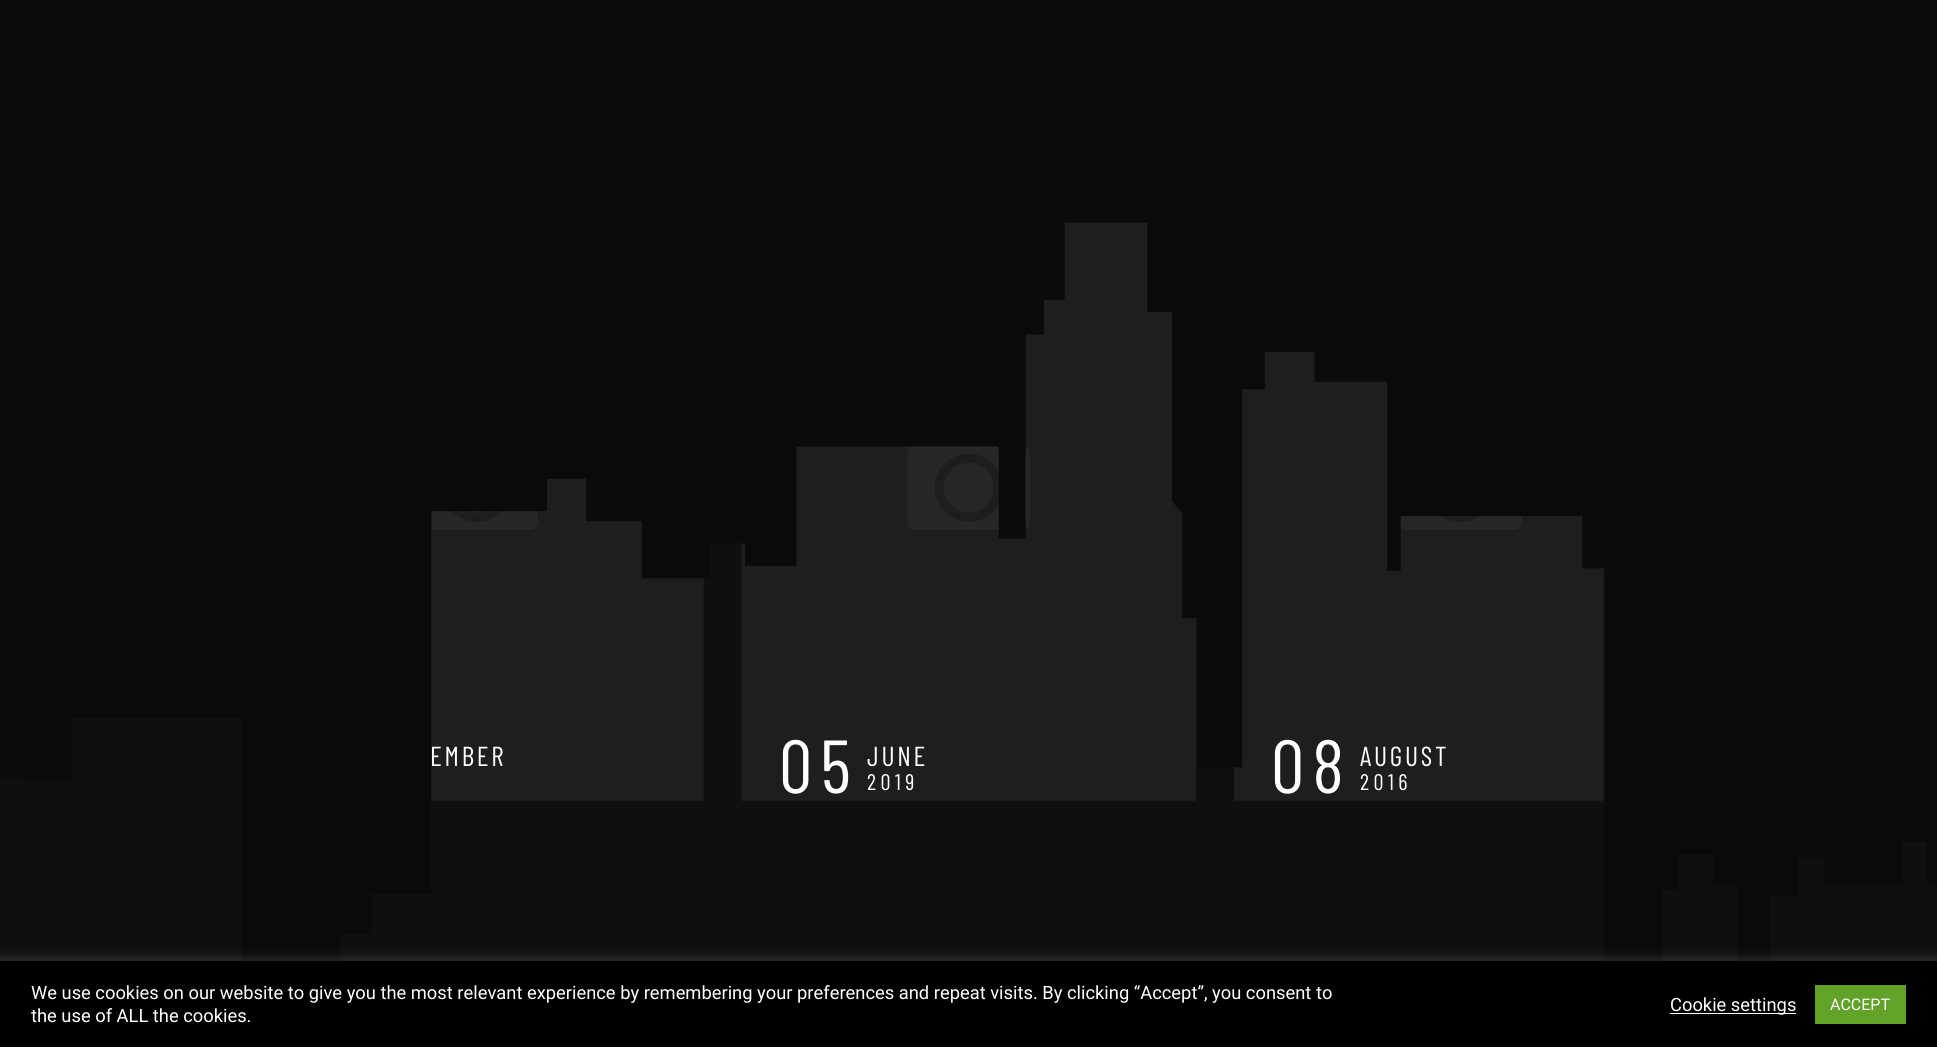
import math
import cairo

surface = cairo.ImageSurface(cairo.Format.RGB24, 1937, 1047)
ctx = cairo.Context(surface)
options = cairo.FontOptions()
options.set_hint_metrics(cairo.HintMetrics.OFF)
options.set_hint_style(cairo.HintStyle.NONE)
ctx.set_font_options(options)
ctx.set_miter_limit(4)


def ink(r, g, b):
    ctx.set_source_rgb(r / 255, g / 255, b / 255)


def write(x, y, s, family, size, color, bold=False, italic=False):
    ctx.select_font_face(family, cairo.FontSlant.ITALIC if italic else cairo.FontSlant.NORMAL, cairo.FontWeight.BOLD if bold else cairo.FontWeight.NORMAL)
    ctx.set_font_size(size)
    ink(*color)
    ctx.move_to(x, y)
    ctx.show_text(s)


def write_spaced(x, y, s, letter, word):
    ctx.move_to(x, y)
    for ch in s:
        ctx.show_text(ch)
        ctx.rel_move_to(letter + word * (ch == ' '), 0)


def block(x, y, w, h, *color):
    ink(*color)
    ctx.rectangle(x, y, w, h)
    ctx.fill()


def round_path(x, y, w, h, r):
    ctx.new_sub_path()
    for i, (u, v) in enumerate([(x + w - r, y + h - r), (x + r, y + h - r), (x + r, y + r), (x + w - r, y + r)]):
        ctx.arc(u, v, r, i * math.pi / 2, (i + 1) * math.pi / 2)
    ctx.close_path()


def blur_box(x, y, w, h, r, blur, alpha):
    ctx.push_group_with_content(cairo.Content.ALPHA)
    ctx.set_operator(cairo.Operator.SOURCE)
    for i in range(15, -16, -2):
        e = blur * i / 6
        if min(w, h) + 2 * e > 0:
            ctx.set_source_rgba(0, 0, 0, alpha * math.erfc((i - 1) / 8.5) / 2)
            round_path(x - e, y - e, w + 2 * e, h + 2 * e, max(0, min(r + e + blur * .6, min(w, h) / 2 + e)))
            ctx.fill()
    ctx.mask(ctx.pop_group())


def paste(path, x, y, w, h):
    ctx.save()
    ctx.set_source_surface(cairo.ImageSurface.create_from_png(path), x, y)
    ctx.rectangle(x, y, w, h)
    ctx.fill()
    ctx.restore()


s1 = dict(family="Roboto", size=18.33, color=(255, 255, 255))
s2 = dict(family="Roboto", size=16, color=(255, 255, 255))

ink(15, 15, 15)
ctx.paint()
block(0, 0, 1937, 205, 10, 10, 10)
paste("pic2.png", 431, 478, 273, 323)
ctx.select_font_face("Barlow Condensed")
ctx.set_font_size(27.5)
ink(255, 255, 255)
write_spaced(430, 766, "EMBER", 2.75, 0)
paste("pic3.png", 741, 222, 455, 579)
ctx.set_font_size(75)
write_spaced(779, 793, "05", 8, 0)
ctx.set_font_size(27.5)
write_spaced(867, 766, "JUNE", 2.75, 0)
ctx.set_font_size(22.5)
write_spaced(867, 790, "2019", 4.5, 0)
paste("pic4.png", 1234, 351, 370, 450)
ctx.set_font_size(75)
write_spaced(1271, 793, "08", 8, 0)
ctx.set_font_size(27.5)
write_spaced(1360, 766, "AUGUST", 2.75, 0)
ctx.set_font_size(22.5)
write_spaced(1360, 790, "2016", 4.5, 0)
paste("pic1.png", 0, 205, 1937, 756)
ink(172, 171, 171)
blur_box(0, 960, 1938, 86, 0, 6, 0.3)
block(0, 961, 1937, 86, 0, 0, 0)
write(31, 999, "We use cookies on our website to give you the most relevant experience by remembering your preferences and repeat visits. By clicking “Accept”, you consent to", **s1)
write(31, 1022, "the use of ALL the cookies.", **s1)
block(1670, 1013, 126, 1, 255, 255, 255)
write(1670, 1011, "Cookie settings", **s1)
block(1815, 985, 91, 39, 97, 162, 41)
write(1830, 1010, "ACCEPT", **s2)
surface.write_to_png("screenshot.png")
